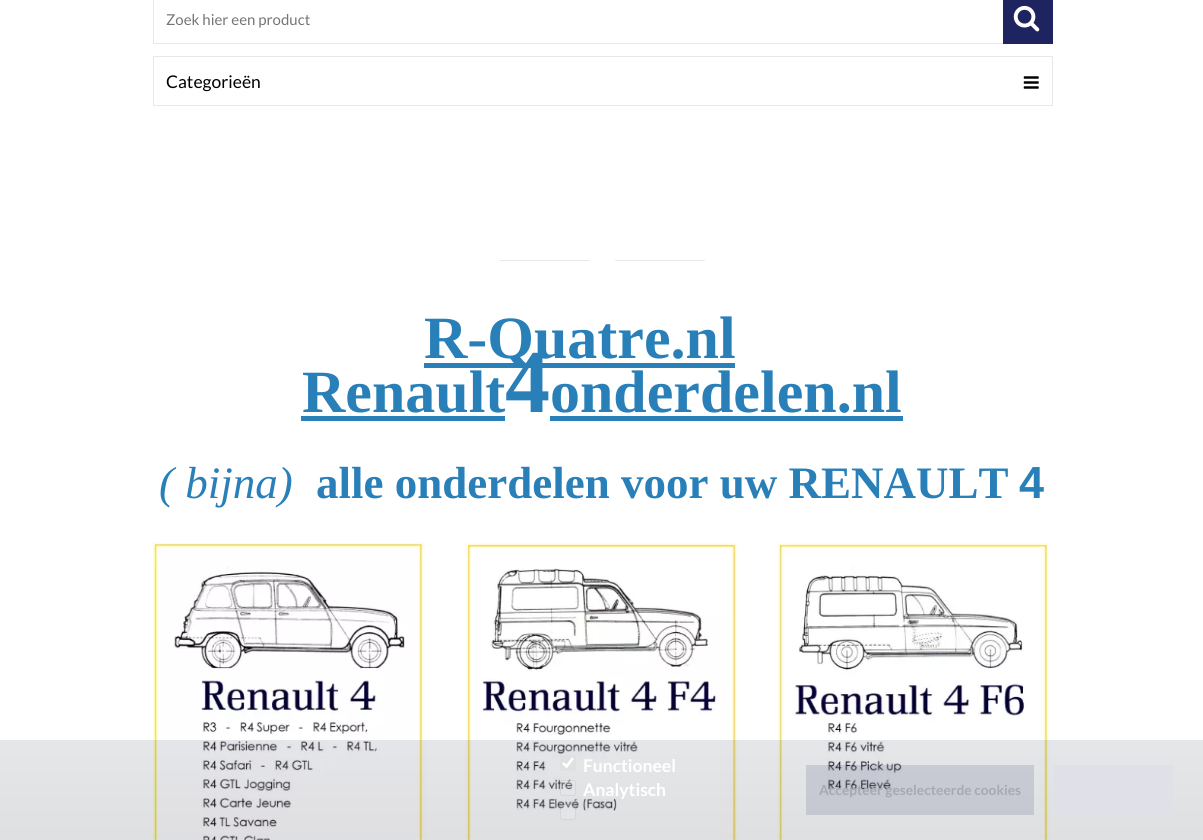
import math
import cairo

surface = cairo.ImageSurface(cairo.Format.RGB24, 1203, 840)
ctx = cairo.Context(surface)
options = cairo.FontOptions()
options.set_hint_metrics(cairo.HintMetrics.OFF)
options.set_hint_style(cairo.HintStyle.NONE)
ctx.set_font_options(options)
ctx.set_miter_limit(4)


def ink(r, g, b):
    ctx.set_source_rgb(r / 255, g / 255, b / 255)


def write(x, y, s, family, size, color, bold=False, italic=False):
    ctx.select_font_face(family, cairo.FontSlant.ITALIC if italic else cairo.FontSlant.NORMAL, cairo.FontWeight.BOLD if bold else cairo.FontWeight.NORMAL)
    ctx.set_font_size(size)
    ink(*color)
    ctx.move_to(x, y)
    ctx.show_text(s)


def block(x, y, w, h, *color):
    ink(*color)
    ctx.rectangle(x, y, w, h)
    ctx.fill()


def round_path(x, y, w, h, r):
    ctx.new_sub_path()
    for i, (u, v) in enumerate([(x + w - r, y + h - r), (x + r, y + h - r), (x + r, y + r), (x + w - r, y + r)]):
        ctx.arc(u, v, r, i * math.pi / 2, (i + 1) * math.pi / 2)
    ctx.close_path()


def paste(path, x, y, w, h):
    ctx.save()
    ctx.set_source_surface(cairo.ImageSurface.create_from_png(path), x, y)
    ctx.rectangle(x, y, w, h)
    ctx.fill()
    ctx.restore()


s1 = dict(family="Lato", size=15, color=(117, 117, 117))
s2 = dict(family="Lato", size=17.5, color=(0, 0, 0))
s3 = dict(family="Liberation Serif", size=60, color=(41, 128, 185), bold=True)
s4 = dict(family="Liberation Serif", size=90, color=(41, 128, 185), bold=True)
s5 = dict(family="Liberation Serif", size=45, color=(41, 128, 185), italic=True)
s6 = dict(family="Liberation Serif", size=45, color=(41, 128, 185), bold=True)
s7 = dict(family="Liberation Sans", size=45, color=(41, 128, 185), bold=True)
s8 = dict(family="Lato", size=17.5, color=(255, 255, 255), bold=True)
s9 = dict(family="Lato", size=13.75, color=(167, 168, 177), bold=True)

ink(255, 255, 255)
ctx.paint()
ctx.rectangle(153.5, -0.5, 899, 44)
ink(232, 232, 232)
ctx.set_line_width(1)
ctx.stroke()
write(166, 25, "Zoek hier een product", **s1)
block(1003, 0, 50, 44, 30, 36, 96)
paste("pic1.png", 1013, 5, 27, 27)
ctx.rectangle(153.5, 56.5, 899, 49)
ink(232, 232, 232)
ctx.stroke()
write(166, 88, "Categorieën", **s2)
paste("pic2.png", 1023, 76, 16, 13)
block(500, 260, 90, 1, 232, 232, 232)
block(615, 260, 90, 1, 232, 232, 232)
block(424, 363, 311, 5, 41, 128, 185)
write(424, 358, "R-Quatre.nl", **s3)
write(302, 412, "Renault", **s3)
block(301, 416, 204, 5, 41, 128, 185)
write(505, 412, "4", **s4)
write(550, 412, "onderdelen.nl", **s3)
block(550, 416, 353, 5, 41, 128, 185)
write(159, 498, "( bijna)", **s5)
write(316, 498, "alle onderdelen voor uw RENAULT", **s6)
write(1019, 498, "4", **s7)
paste("pic3.png", 152, 542, 274, 298)
paste("pic4.png", 465, 542, 273, 298)
paste("pic5.png", 777, 542, 274, 298)
gradient = cairo.LinearGradient(602, 740, 602, 839)
gradient.add_color_stop_rgba(0, 0.259, 0.325, 0.388, 0.14)
gradient.add_color_stop_rgba(1, 0.118, 0.129, 0.173, 0.14)
ctx.set_source(gradient)
ctx.rectangle(0, 740, 1203, 99)
ctx.fill()
gradient = cairo.LinearGradient(602, 839, 602, 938)
gradient.add_color_stop_rgba(0, 0.259, 0.325, 0.388, 0.14)
gradient.add_color_stop_rgba(1, 0.118, 0.129, 0.173, 0.14)
ctx.set_source(gradient)
ctx.rectangle(0, 839, 1203, 1)
ctx.fill()
ctx.set_source_rgba(0.733, 0.733, 0.733, 0.14)
ctx.rectangle(0, 839, 1203, 1)
ctx.fill()
ink(222, 224, 226)
round_path(560, 755, 16, 16, 2.5)
ctx.fill()
ctx.new_path()
ctx.move_to(563, 763)
ctx.line_to(566.5, 766.5)
ctx.line_to(573, 758)
ink(255, 255, 255)
ctx.set_line_width(2.6)
ctx.stroke()
write(583, 772, "Functioneel", **s8)
ctx.set_source_rgba(1, 1, 1, 0.14)
round_path(560, 780, 16, 16, 2.5)
ctx.fill()
round_path(560.5, 780.5, 15, 15, 2)
ctx.set_source_rgba(0.463, 0.463, 0.463, 0.14)
ctx.set_line_width(1)
ctx.stroke()
write(583, 796, "Analytisch", **s8)
ctx.set_source_rgba(1, 1, 1, 0.14)
round_path(560, 804, 16, 16, 2.5)
ctx.fill()
round_path(560.5, 804.5, 15, 15, 2)
ctx.set_source_rgba(0.463, 0.463, 0.463, 0.14)
ctx.stroke()
ctx.set_source_rgba(0.118, 0.141, 0.376, 0.14)
ctx.rectangle(806, 765, 228, 50)
ctx.fill()
write(819, 795, "Accepteer geselecteerde cookies", **s9)
block(1053, 765, 120, 50, 223, 224, 232)
surface.write_to_png("screenshot.png")
